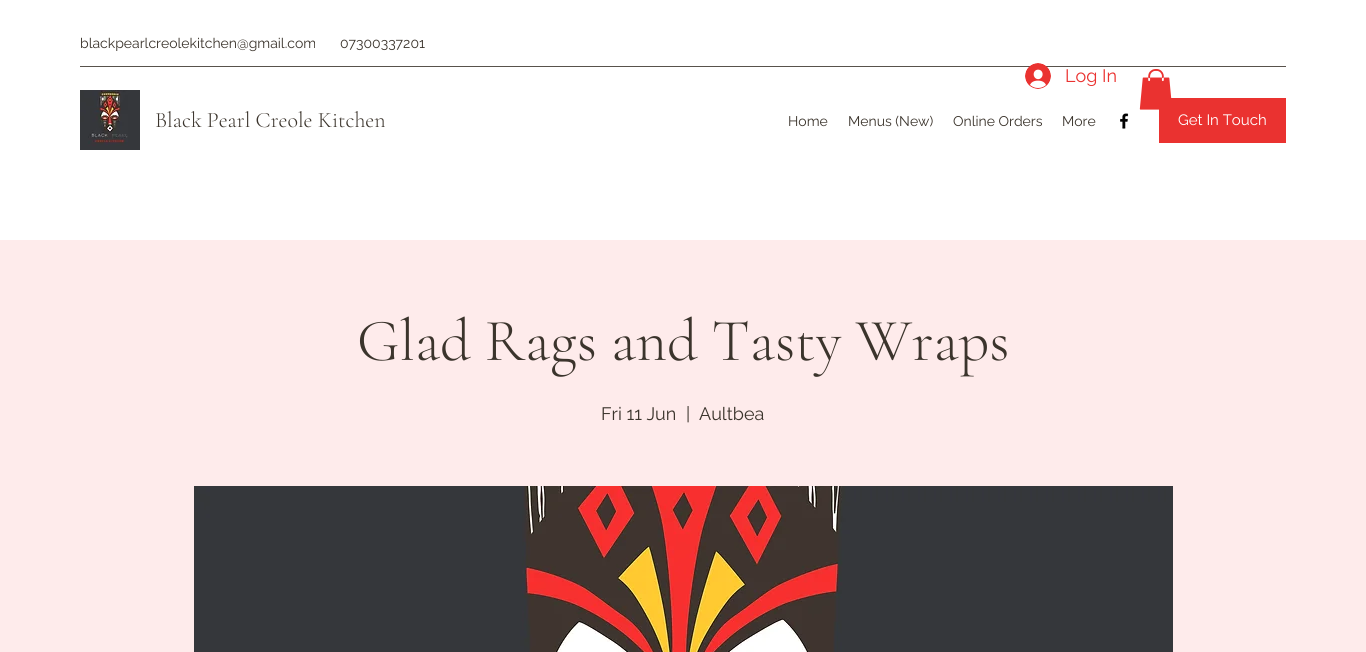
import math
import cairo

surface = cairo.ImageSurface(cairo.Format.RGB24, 1366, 652)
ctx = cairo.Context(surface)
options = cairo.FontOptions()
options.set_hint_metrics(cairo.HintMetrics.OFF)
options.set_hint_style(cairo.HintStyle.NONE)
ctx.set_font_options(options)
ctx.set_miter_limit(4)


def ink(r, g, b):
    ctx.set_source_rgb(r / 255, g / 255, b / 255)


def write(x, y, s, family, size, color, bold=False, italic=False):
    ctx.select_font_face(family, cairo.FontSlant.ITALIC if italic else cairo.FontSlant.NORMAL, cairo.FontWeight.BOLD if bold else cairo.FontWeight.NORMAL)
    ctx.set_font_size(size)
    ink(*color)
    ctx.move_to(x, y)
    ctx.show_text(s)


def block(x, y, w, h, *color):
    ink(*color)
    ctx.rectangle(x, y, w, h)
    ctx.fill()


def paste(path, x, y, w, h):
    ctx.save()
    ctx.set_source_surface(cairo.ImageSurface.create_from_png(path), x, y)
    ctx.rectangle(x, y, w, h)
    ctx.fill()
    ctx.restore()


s1 = dict(family="Raleway", size=14, color=(59, 52, 44))
s2 = dict(family="Raleway", size=18, color=(234, 50, 48))
s3 = dict(family="Cormorant Garamond Light", size=22, color=(59, 52, 44))
s4 = dict(family="Raleway", size=15, color=(255, 255, 255))
s5 = dict(family="Cormorant Garamond Light", size=60, color=(59, 52, 44))
s6 = dict(family="Raleway", size=18, color=(59, 52, 44))

ink(255, 255, 255)
ctx.paint()
write(80, 48, "blackpearlcreolekitchen@gmail.com", **s1)
write(340, 48, "07300337201", **s1)
block(80, 66, 1206, 1, 88, 82, 76)
paste("pic1.png", 1025, 63, 26, 26)
write(1065, 82, "Log In", **s2)
block(1159, 98, 127, 45, 234, 50, 48)
paste("pic2.png", 1139, 69, 33, 41)
paste("pic3.png", 80, 90, 60, 60)
write(155, 127, "Black Pearl Creole Kitchen", **s3)
write(788, 126, "Home", **s1)
write(848, 126, "Menus (New)", **s1)
write(953, 126, "Online Orders", **s1)
write(1062, 126, "More", **s1)
paste("pic4.png", 1120, 113, 9, 16)
write(1178, 125, "Get In Touch", **s4)
block(0, 240, 1366, 412, 254, 235, 235)
write(357, 360, "Glad Rags and Tasty Wraps", **s5)
write(601, 420, "Fri 11 Jun", **s6)
write(686, 420, "|", **s6)
write(699, 420, "Aultbea", **s6)
paste("pic5.png", 194, 486, 979, 166)
surface.write_to_png("screenshot.png")
